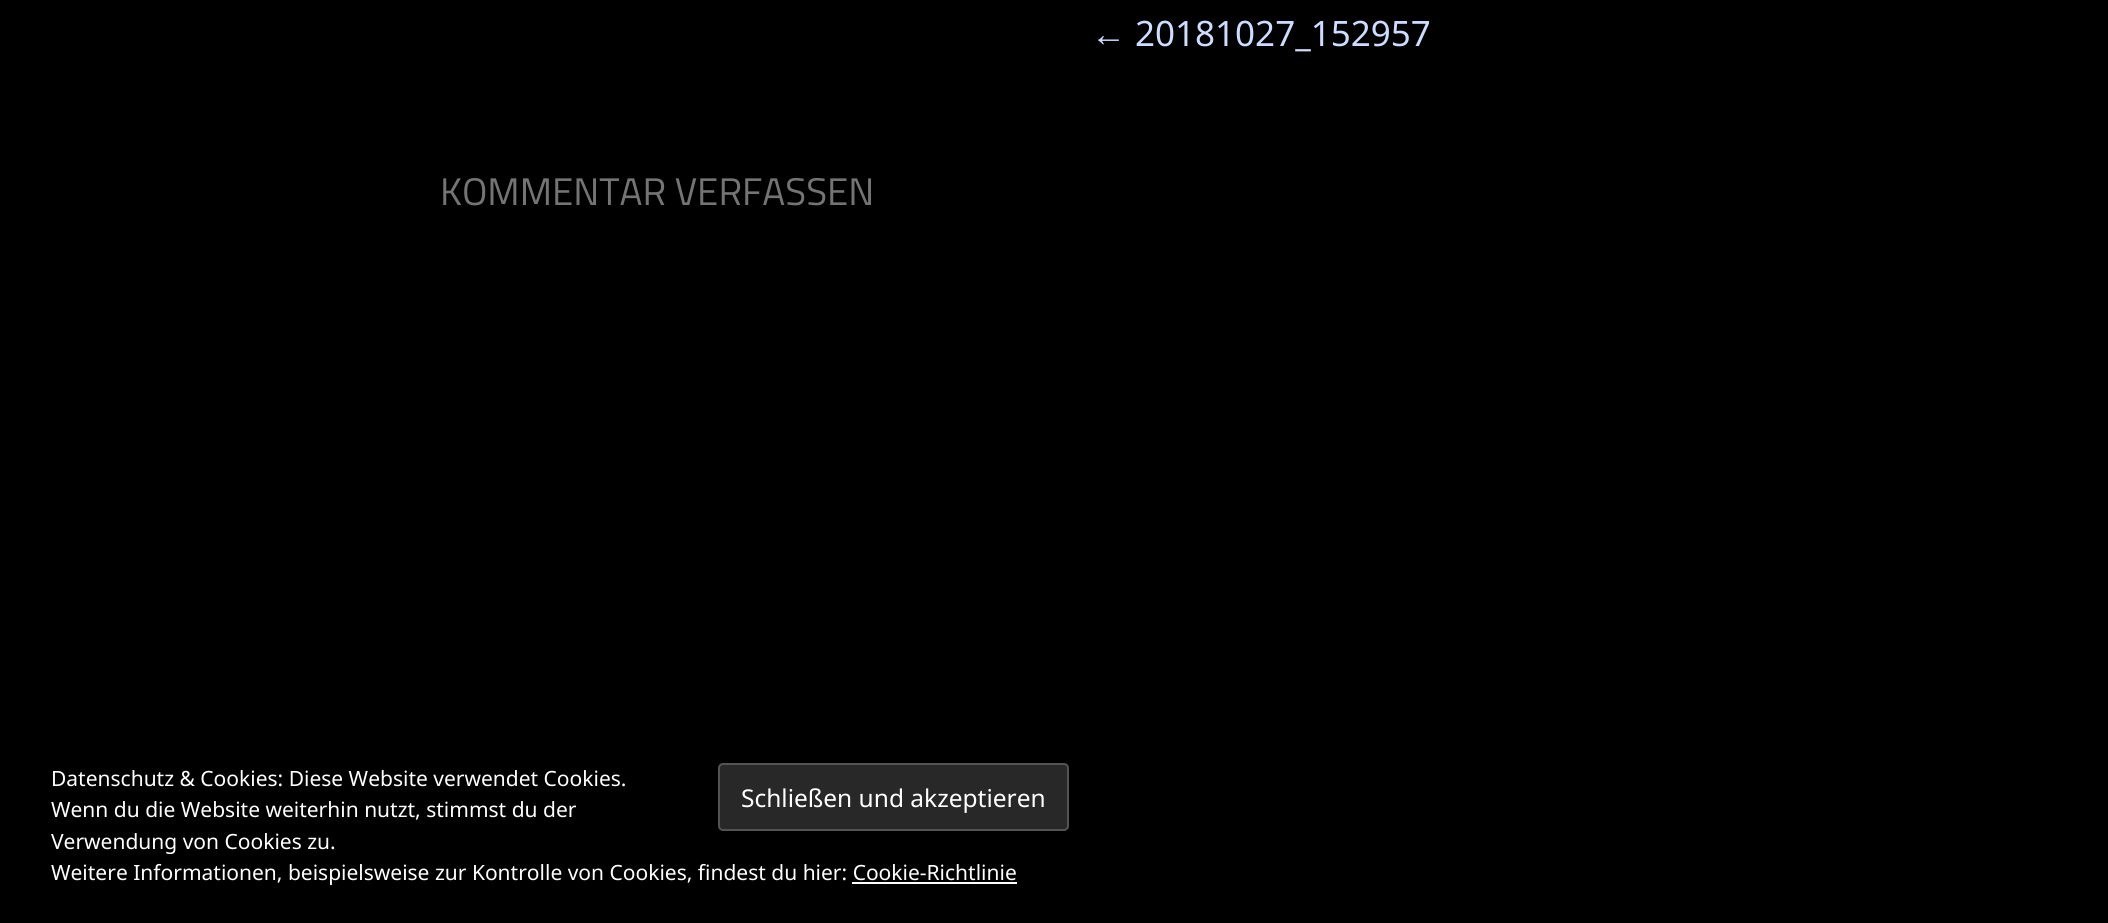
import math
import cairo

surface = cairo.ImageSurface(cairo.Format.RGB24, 2108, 923)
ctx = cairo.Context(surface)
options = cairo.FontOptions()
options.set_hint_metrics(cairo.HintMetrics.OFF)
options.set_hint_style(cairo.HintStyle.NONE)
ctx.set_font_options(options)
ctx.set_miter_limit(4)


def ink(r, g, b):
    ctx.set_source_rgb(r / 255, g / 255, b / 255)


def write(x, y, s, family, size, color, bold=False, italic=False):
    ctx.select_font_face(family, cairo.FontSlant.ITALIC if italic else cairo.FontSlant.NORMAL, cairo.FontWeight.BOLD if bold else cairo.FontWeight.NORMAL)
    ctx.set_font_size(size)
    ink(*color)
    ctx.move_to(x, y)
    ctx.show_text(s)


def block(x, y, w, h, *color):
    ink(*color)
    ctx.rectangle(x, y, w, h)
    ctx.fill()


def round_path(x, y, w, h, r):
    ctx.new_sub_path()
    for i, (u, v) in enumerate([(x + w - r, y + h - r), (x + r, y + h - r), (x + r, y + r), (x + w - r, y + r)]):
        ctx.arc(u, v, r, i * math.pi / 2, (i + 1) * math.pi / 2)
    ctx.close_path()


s1 = dict(family="Liberation Sans", size=35, color=(204, 221, 255))
s2 = dict(family="Noto Sans", size=35, color=(204, 221, 255))
s3 = dict(family="Titillium Web", size=38.5, color=(116, 116, 116))
s4 = dict(family="Noto Sans", size=21, color=(255, 255, 255))
s5 = dict(family="Noto Sans", size=24.5, color=(255, 255, 255))

ink(0, 0, 0)
ctx.paint()
write(1091, 46, "←", **s1)
write(1135, 46, "20181027_152957", **s2)
write(440, 205, "KOMMENTAR VERFASSEN", **s3)
write(51, 786, "Datenschutz & Cookies: Diese Website verwendet Cookies.", **s4)
write(51, 817, "Wenn du die Website weiterhin nutzt, stimmst du der", **s4)
ink(40, 40, 40)
round_path(719, 764, 349, 66, 4)
ctx.fill_preserve()
ink(83, 83, 83)
ctx.stroke()
write(741, 807, "Schließen und akzeptieren", **s5)
write(51, 849, "Verwendung von Cookies zu.", **s4)
write(51, 880, "Weitere Informationen, beispielsweise zur Kontrolle von Cookies, findest du hier: Cookie-Richtlinie", **s4)
block(852, 882, 165, 2, 255, 255, 255)
surface.write_to_png("screenshot.png")
